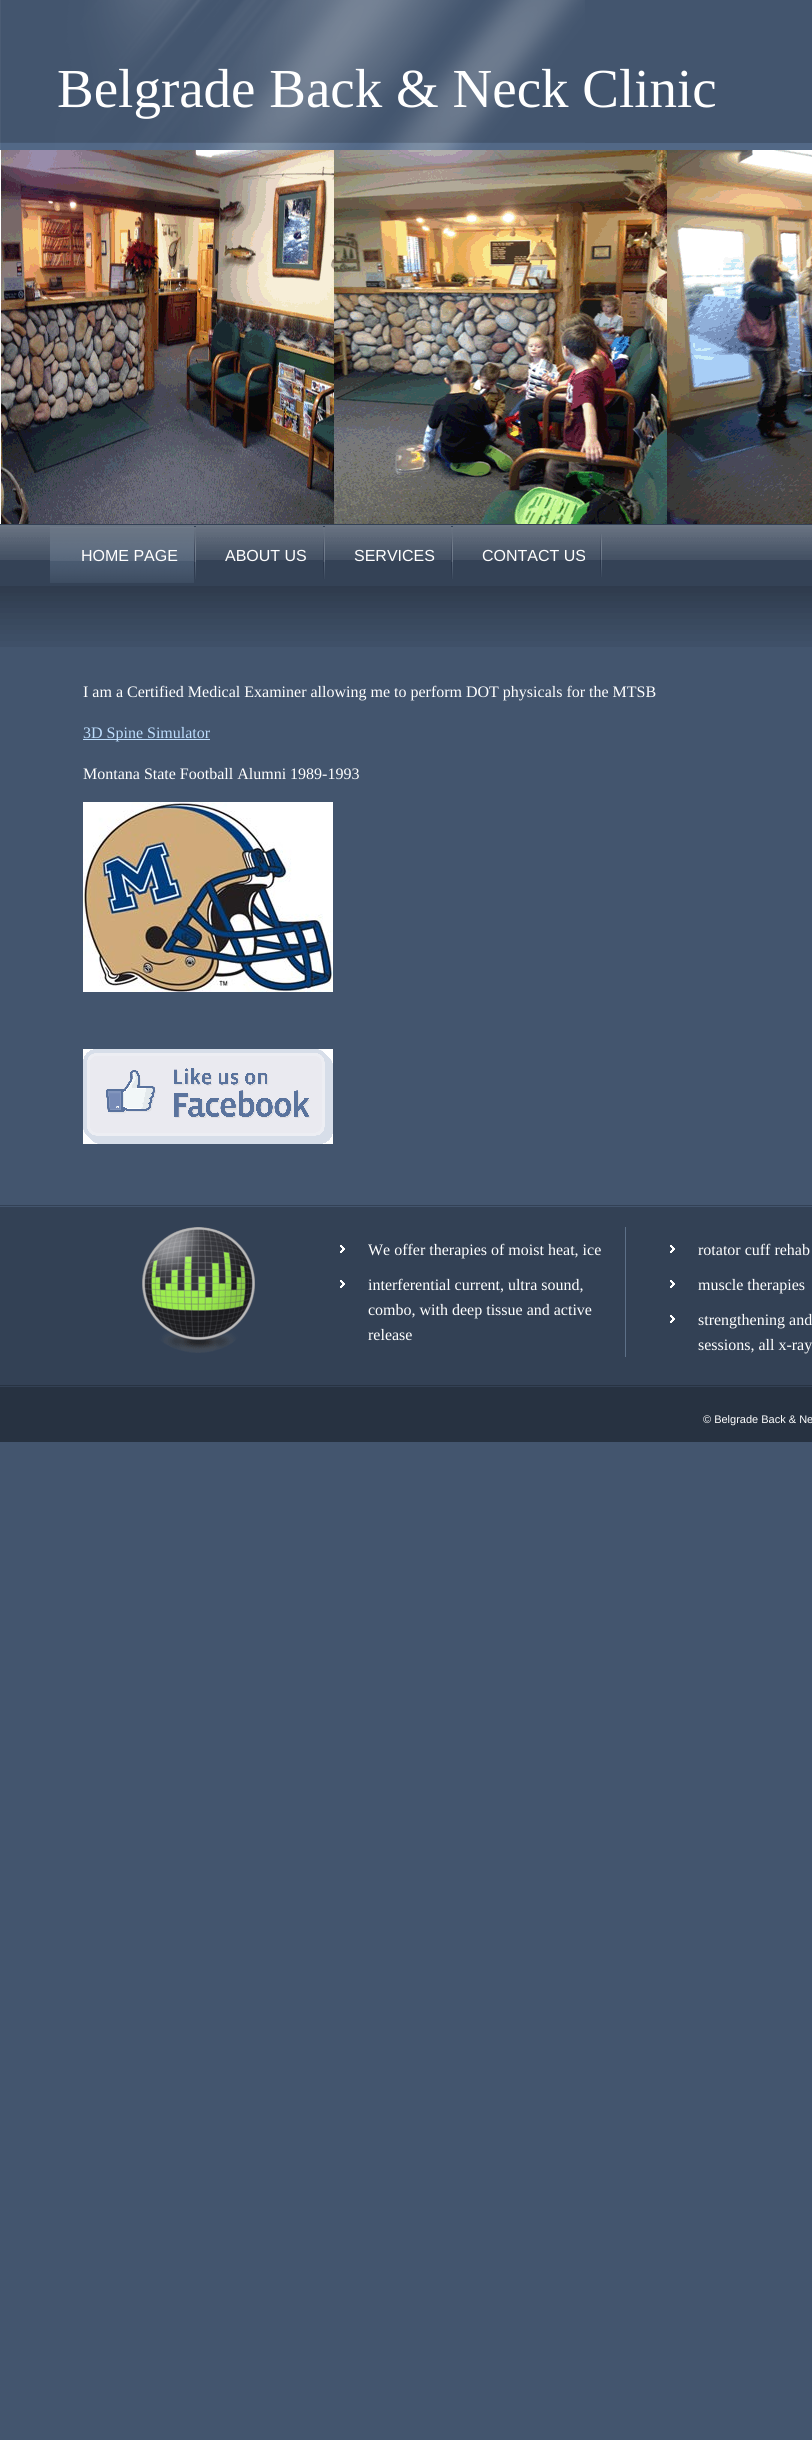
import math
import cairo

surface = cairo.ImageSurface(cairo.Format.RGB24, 812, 2440)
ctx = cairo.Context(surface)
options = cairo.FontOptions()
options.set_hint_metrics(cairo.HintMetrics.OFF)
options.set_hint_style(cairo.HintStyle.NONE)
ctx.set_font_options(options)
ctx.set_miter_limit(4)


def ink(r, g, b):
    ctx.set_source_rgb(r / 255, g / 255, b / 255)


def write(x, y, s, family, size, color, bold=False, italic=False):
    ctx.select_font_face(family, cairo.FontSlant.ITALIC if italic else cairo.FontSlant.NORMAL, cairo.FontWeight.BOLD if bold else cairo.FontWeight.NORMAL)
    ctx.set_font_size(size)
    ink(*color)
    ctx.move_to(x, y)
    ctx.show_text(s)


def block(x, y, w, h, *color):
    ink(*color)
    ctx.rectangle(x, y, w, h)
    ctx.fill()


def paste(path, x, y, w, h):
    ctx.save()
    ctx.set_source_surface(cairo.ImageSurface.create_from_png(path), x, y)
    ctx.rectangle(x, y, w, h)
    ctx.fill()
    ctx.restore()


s1 = dict(family="Liberation Serif", size=55, color=(255, 255, 255))
s2 = dict(family="Liberation Sans", size=16, color=(255, 255, 255))
s3 = dict(family="Liberation Serif", size=16, color=(255, 255, 255))
s4 = dict(family="Liberation Serif", size=16, color=(189, 221, 253))
s5 = dict(family="Liberation Sans", size=11, color=(255, 255, 255))

ink(67, 85, 110)
ctx.paint()
paste("pic1.png", 0, 143, 812, 504)
paste("pic2.png", 0, 0, 585, 150)
write(57, 107, "Belgrade Back & Neck Clinic", **s1)
paste("pic3.png", 0, 150, 812, 374)
paste("pic4.png", 600, 534, 2, 43)
paste("pic5.png", 50, 526, 144, 57)
write(81, 561, "HOME PAGE", **s2)
paste("pic6.png", 194, 526, 2, 53)
write(225, 561, "ABOUT US", **s2)
paste("pic6.png", 323, 526, 2, 53)
write(354, 561, "SERVICES", **s2)
paste("pic6.png", 451, 526, 2, 53)
write(482, 561, "CONTACT US", **s2)
write(83, 697, "I am a Certified Medical Examiner allowing me to perform DOT physicals for the MTSB", **s3)
block(83, 739, 127, 1, 189, 221, 253)
write(83, 738, "3D Spine Simulator", **s4)
write(83, 779, "Montana State Football Alumni 1989-1993", **s3)
paste("pic7.png", 83, 802, 250, 190)
paste("pic8.png", 83, 1049, 250, 95)
block(0, 1205, 812, 180, 51, 65, 85)
block(0, 1206, 812, 1, 67, 85, 110)
paste("pic9.png", 142, 1227, 113, 126)
block(625, 1227, 1, 130, 93, 112, 136)
paste("pic10.png", 340, 1245, 5, 8)
write(368, 1255, "We offer therapies of moist heat, ice", **s3)
paste("pic10.png", 340, 1280, 5, 8)
write(368, 1290, "interferential current, ultra sound,", **s3)
write(368, 1315, "combo, with deep tissue and active", **s3)
write(368, 1340, "release", **s3)
paste("pic10.png", 670, 1245, 5, 8)
write(698, 1255, "rotator cuff rehab", **s3)
paste("pic10.png", 670, 1280, 5, 8)
write(698, 1290, "muscle therapies", **s3)
paste("pic10.png", 670, 1315, 5, 8)
write(698, 1325, "strengthening and", **s3)
write(698, 1350, "sessions, all x-ray", **s3)
paste("pic11.png", 0, 1385, 812, 57)
write(703, 1423, "© Belgrade Back & Ne", **s5)
surface.write_to_png("screenshot.png")
